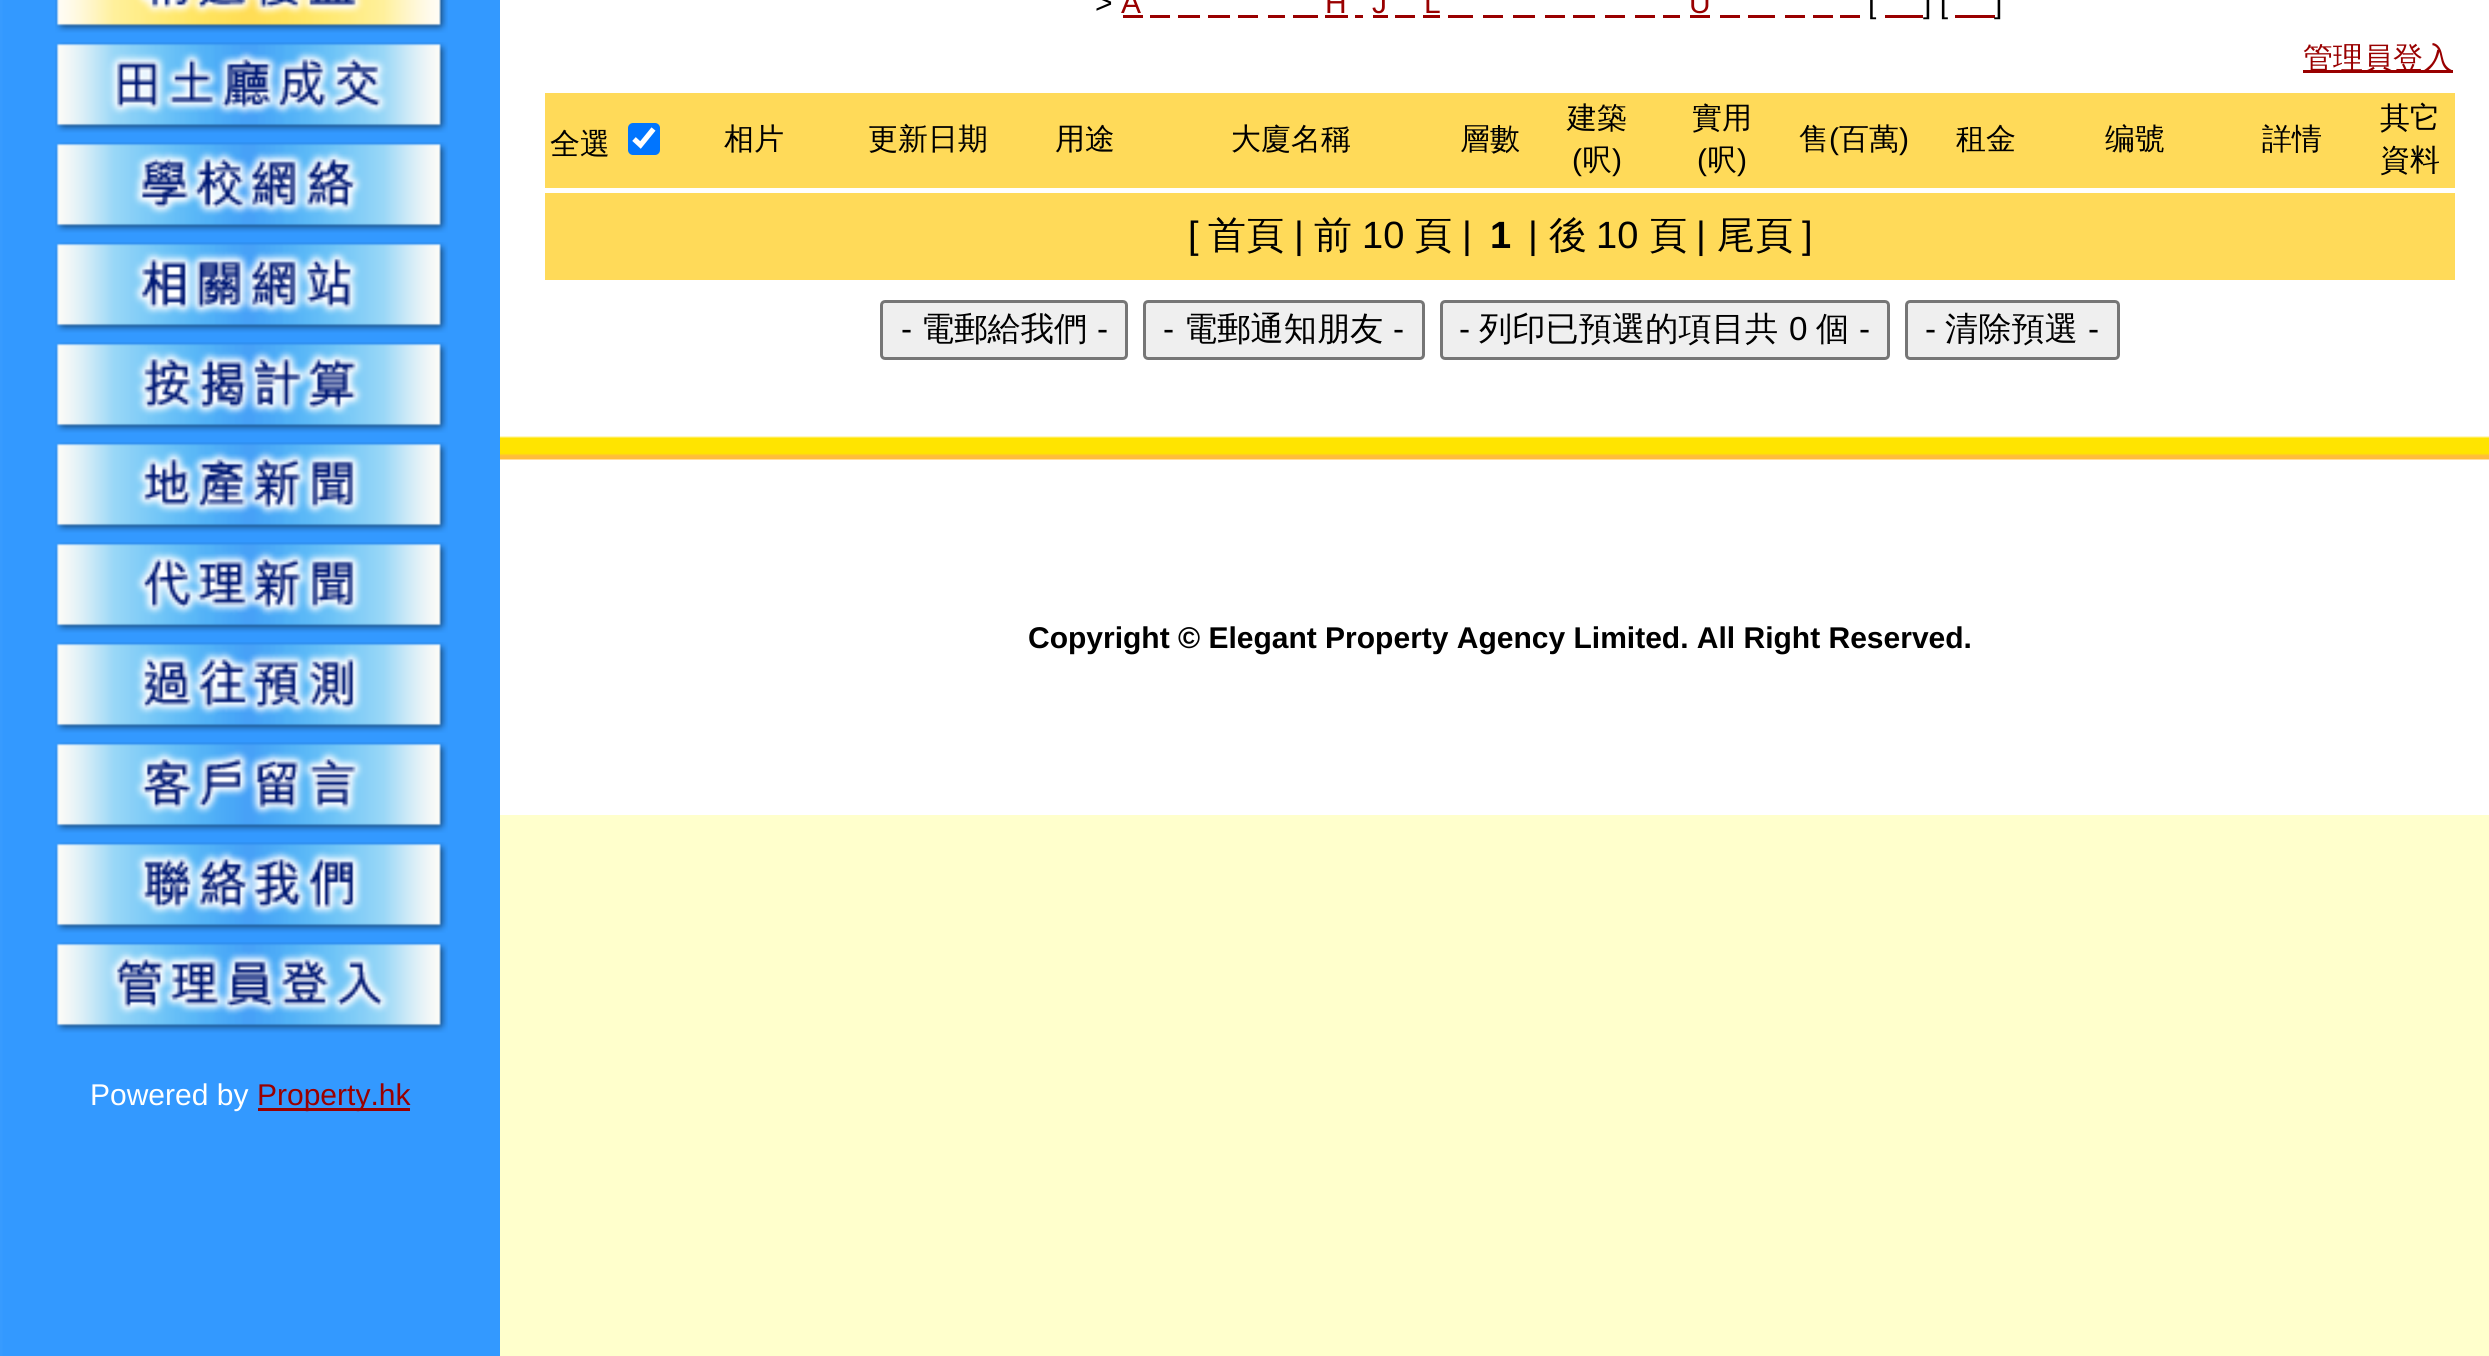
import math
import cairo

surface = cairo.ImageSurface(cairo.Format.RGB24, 2489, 1356)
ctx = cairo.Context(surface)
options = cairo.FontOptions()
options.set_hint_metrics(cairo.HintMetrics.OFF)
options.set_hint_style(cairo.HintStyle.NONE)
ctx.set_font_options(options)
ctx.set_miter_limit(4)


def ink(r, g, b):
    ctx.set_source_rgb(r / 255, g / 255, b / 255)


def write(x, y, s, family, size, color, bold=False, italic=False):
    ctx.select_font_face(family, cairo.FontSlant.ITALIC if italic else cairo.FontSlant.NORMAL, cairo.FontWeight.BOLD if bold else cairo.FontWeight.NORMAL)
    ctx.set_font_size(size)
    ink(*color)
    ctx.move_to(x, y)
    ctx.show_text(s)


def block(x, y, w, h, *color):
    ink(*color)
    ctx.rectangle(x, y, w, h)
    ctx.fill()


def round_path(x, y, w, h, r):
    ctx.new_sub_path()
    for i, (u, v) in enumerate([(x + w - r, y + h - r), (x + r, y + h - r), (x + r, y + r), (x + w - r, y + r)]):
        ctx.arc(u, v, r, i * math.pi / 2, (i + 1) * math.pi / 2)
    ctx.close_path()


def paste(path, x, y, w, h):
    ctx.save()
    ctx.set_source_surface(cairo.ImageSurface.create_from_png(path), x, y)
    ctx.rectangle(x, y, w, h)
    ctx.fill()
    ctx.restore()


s1 = dict(family="Liberation Sans", size=30, color=(0, 0, 0))
s2 = dict(family="Liberation Sans", size=30, color=(153, 0, 0))
s3 = dict(family="WenQuanYi Zen Hei Medium", size=30, color=(153, 0, 0))
s4 = dict(family="WenQuanYi Zen Hei Medium", size=30, color=(0, 0, 0))
s5 = dict(family="Liberation Sans", size=38, color=(0, 0, 0))
s6 = dict(family="WenQuanYi Zen Hei Medium", size=38, color=(0, 0, 0))
s7 = dict(family="Liberation Sans", size=38, color=(0, 0, 0), bold=True)
s8 = dict(family="Liberation Sans", size=33.25, color=(0, 0, 0))
s9 = dict(family="WenQuanYi Zen Hei Medium", size=33.25, color=(0, 0, 0))
s10 = dict(family="Liberation Sans", size=30, color=(0, 0, 0), bold=True)
s11 = dict(family="Liberation Sans", size=30, color=(255, 255, 255))

ink(255, 255, 204)
ctx.paint()
block(500, 0, 1989, 815, 255, 255, 255)
write(1095, 13, ">", **s1)
write(1121, 13, "A", **s2)
block(1123, 15, 20, 3, 153, 0, 0)
block(1150, 15, 20, 3, 153, 0, 0)
block(1178, 15, 22, 3, 153, 0, 0)
block(1208, 15, 22, 3, 153, 0, 0)
block(1238, 15, 20, 3, 153, 0, 0)
block(1268, 15, 17, 3, 153, 0, 0)
block(1293, 15, 25, 3, 153, 0, 0)
write(1325, 13, "H", **s2)
block(1325, 15, 23, 3, 153, 0, 0)
block(1355, 15, 8, 3, 153, 0, 0)
write(1372, 13, "J", **s2)
block(1373, 15, 15, 3, 153, 0, 0)
block(1395, 15, 20, 3, 153, 0, 0)
write(1424, 13, "L", **s2)
block(1423, 15, 17, 3, 153, 0, 0)
block(1448, 15, 25, 3, 153, 0, 0)
block(1483, 15, 20, 3, 153, 0, 0)
block(1513, 15, 22, 3, 153, 0, 0)
block(1545, 15, 20, 3, 153, 0, 0)
block(1573, 15, 22, 3, 153, 0, 0)
block(1605, 15, 20, 3, 153, 0, 0)
block(1635, 15, 20, 3, 153, 0, 0)
block(1663, 15, 17, 3, 153, 0, 0)
write(1689, 13, "U", **s2)
block(1690, 15, 20, 3, 153, 0, 0)
block(1720, 15, 20, 3, 153, 0, 0)
block(1748, 15, 27, 3, 153, 0, 0)
block(1785, 15, 20, 3, 153, 0, 0)
block(1813, 15, 20, 3, 153, 0, 0)
block(1840, 15, 20, 3, 153, 0, 0)
write(1868, 13, "[", **s1)
block(1885, 15, 38, 3, 153, 0, 0)
write(1923, 13, "] [", **s1)
block(1955, 15, 40, 3, 153, 0, 0)
write(1994, 13, "]", **s1)
block(2303, 70, 150, 3, 153, 0, 0)
write(2303, 68, "管理員登入", **s3)
block(545, 93, 1910, 95, 255, 218, 89)
write(550, 154, "全選", **s4)
ink(0, 117, 255)
round_path(628, 123, 32, 32, 5)
ctx.fill()
ctx.new_path()
ctx.move_to(634, 139)
ctx.line_to(640.5, 145)
ctx.line_to(653.5, 129)
ink(255, 255, 255)
ctx.set_line_width(5.2)
ctx.stroke()
write(724, 149, "相片", **s4)
write(868, 149, "更新日期", **s4)
write(1055, 149, "用途", **s4)
write(1231, 149, "大廈名稱", **s4)
write(1460, 149, "層數", **s4)
write(1567, 128, "建築", **s4)
write(1572, 170, "(", **s1)
write(1582, 170, "呎", **s4)
write(1612, 170, ")", **s1)
write(1692, 128, "實用", **s4)
write(1697, 170, "(", **s1)
write(1707, 170, "呎", **s4)
write(1737, 170, ")", **s1)
write(1799, 149, "售", **s4)
write(1829, 149, "(", **s1)
write(1839, 149, "百萬", **s4)
write(1899, 149, ")", **s1)
write(1956, 149, "租金", **s4)
write(2105, 149, "编號", **s4)
write(2262, 149, "詳情", **s4)
write(2380, 128, "其它", **s4)
write(2380, 170, "資料", **s4)
block(545, 193, 1910, 87, 255, 218, 89)
write(1188, 248, "[", **s5)
write(1208, 248, "首頁", **s6)
write(1294, 248, "|", **s5)
write(1314, 248, "前", **s6)
write(1362, 248, "10", **s5)
write(1414, 248, "頁", **s6)
write(1462, 248, "|", **s5)
write(1490, 248, "1", **s7)
write(1528, 248, "|", **s5)
write(1549, 248, "後", **s6)
write(1596, 248, "10", **s5)
write(1649, 248, "頁", **s6)
write(1696, 248, "|", **s5)
write(1717, 248, "尾頁", **s6)
write(1802, 248, "]", **s5)
ink(239, 239, 239)
round_path(881.5, 301.5, 245, 57, 3.5)
ctx.fill_preserve()
ink(118, 118, 118)
ctx.set_line_width(3)
ctx.stroke()
write(901, 340, "-", **s8)
write(921, 340, "電郵給我們", **s9)
write(1097, 340, "-", **s8)
ink(239, 239, 239)
round_path(1144.5, 301.5, 279, 57, 3.5)
ctx.fill_preserve()
ink(118, 118, 118)
ctx.stroke()
write(1163, 340, "-", **s8)
write(1184, 340, "電郵通知朋友", **s9)
write(1393, 340, "-", **s8)
ink(239, 239, 239)
round_path(1441.5, 301.5, 447, 57, 3.5)
ctx.fill_preserve()
ink(118, 118, 118)
ctx.stroke()
write(1459, 340, "-", **s8)
write(1479, 340, "列印已預選的項目共", **s9)
write(1789, 340, "0", **s8)
write(1816, 340, "個", **s9)
write(1859, 340, "-", **s8)
ink(239, 239, 239)
round_path(1906.5, 301.5, 212, 57, 3.5)
ctx.fill_preserve()
ink(118, 118, 118)
ctx.stroke()
write(1925, 340, "-", **s8)
write(1945, 340, "清除預選", **s9)
write(2088, 340, "-", **s8)
paste("pic1.png", 500, 436, 1989, 24)
write(1028, 648, "Copyright © Elegant Property Agency Limited. All Right Reserved.", **s10)
paste("pic2.png", 0, 0, 500, 1356)
paste("pic3.png", 55, 0, 393, 33)
paste("pic4.png", 55, 42, 393, 91)
paste("pic5.png", 55, 142, 393, 91)
paste("pic6.png", 55, 242, 393, 91)
paste("pic7.png", 55, 342, 393, 91)
paste("pic8.png", 55, 442, 393, 91)
paste("pic9.png", 55, 542, 393, 91)
paste("pic10.png", 55, 642, 393, 91)
paste("pic11.png", 55, 742, 393, 91)
paste("pic12.png", 55, 842, 393, 91)
paste("pic13.png", 55, 942, 393, 91)
write(90, 1105, "Powered by", **s11)
block(258, 1108, 152, 3, 153, 0, 0)
write(257, 1105, "Property.hk", **s2)
surface.write_to_png("screenshot.png")
